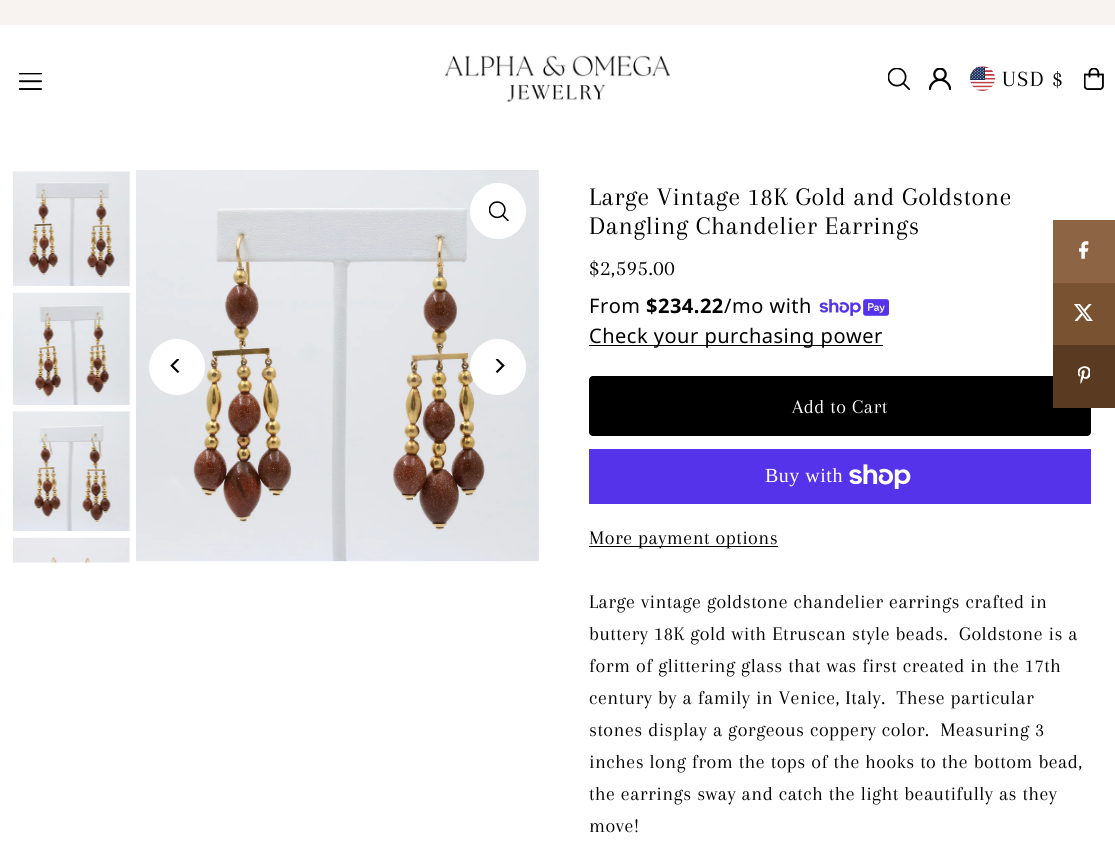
import math
import cairo

surface = cairo.ImageSurface(cairo.Format.RGB24, 1115, 844)
ctx = cairo.Context(surface)
options = cairo.FontOptions()
options.set_hint_metrics(cairo.HintMetrics.OFF)
options.set_hint_style(cairo.HintStyle.NONE)
ctx.set_font_options(options)
ctx.set_miter_limit(4)


def ink(r, g, b):
    ctx.set_source_rgb(r / 255, g / 255, b / 255)


def write_spaced(x, y, s, letter, word):
    ctx.move_to(x, y)
    for ch in s:
        ctx.show_text(ch)
        ctx.rel_move_to(letter + word * (ch == ' '), 0)


def block(x, y, w, h, *color):
    ink(*color)
    ctx.rectangle(x, y, w, h)
    ctx.fill()


def round_path(x, y, w, h, r):
    ctx.new_sub_path()
    for i, (u, v) in enumerate([(x + w - r, y + h - r), (x + r, y + h - r), (x + r, y + r), (x + w - r, y + r)]):
        ctx.arc(u, v, r, i * math.pi / 2, (i + 1) * math.pi / 2)
    ctx.close_path()


def paste(path, x, y, w, h):
    ctx.save()
    ctx.set_source_surface(cairo.ImageSurface.create_from_png(path), x, y)
    ctx.rectangle(x, y, w, h)
    ctx.fill()
    ctx.restore()


ink(255, 255, 255)
ctx.paint()
block(0, 0, 1115, 25, 248, 243, 240)
paste("pic1.png", 19, 73, 23, 17)
paste("pic2.png", 445, 55, 225, 47)
paste("pic3.png", 888, 68, 22, 22)
paste("pic4.png", 929, 68, 22, 22)
paste("pic5.png", 970, 66, 25, 25)
ctx.select_font_face("Arapey")
ctx.set_font_size(22.5)
ink(0, 0, 0)
write_spaced(1002, 86, "USD $", 1.5, 0)
paste("pic6.png", 1084, 68, 20, 22)
paste("pic7.png", 13, 171, 118, 115)
paste("pic8.png", 13, 292, 118, 113)
paste("pic9.png", 13, 411, 118, 120)
paste("pic10.png", 13, 537, 118, 26)
paste("pic11.png", 136, 170, 403, 392)
ink(255, 255, 255)
ctx.arc(498, 211, 28, 0, 2 * math.pi)
ctx.fill()
paste("pic12.png", 489, 201, 20, 20)
ctx.arc(177, 367, 28, 0, 2 * math.pi)
ctx.fill()
paste("pic13.png", 170, 359, 10, 14)
ctx.arc(498, 367, 28, 0, 2 * math.pi)
ctx.fill()
paste("pic14.png", 495, 359, 10, 14)
ctx.set_font_size(26.25)
ink(0, 0, 0)
write_spaced(589, 205, "Large Vintage 18K Gold and Goldstone", 0.65, 0)
write_spaced(589, 234, "Dangling Chandelier Earrings", 0.65, 0)
ctx.set_font_size(22.5)
write_spaced(589, 275, "$2,595.00", 0.5, 0)
ctx.select_font_face("Noto Sans")
ctx.set_font_size(20)
write_spaced(589, 313, "From", 0.5, 0)
ctx.select_font_face("Noto Sans", cairo.FontSlant.NORMAL, cairo.FontWeight.BOLD)
write_spaced(646, 313, "$234.22", 0.5, 0)
ctx.select_font_face("Noto Sans")
write_spaced(724, 313, "/mo with", 0.5, 0)
paste("pic15.png", 819, 299, 70, 17)
block(589, 345, 294, 1, 0, 0, 0)
write_spaced(589, 343, "Check your purchasing power", 0.5, 0)
round_path(589, 376, 502, 60, 4)
ctx.fill()
ctx.select_font_face("Arapey")
ink(255, 255, 255)
write_spaced(792, 413, "Add to Cart", 0.5, 0)
block(589, 449, 502, 55, 84, 51, 235)
ctx.select_font_face("Liberation Serif")
ink(255, 255, 255)
write_spaced(765, 482, "Buy with", 0.5, 0)
paste("pic16.png", 849, 464, 62, 25)
block(589, 546, 189, 1, 0, 0, 0)
ctx.select_font_face("Arapey")
write_spaced(589, 544, "More payment options", 0.5, 0)
write_spaced(589, 608, "Large vintage goldstone chandelier earrings crafted in", 0.5, 0)
write_spaced(589, 640, "buttery 18K gold with Etruscan style beads.  Goldstone is a", 0.5, 0)
write_spaced(589, 672, "form of glittering glass that was first created in the 17th", 0.5, 0)
write_spaced(589, 704, "century by a family in Venice, Italy.  These particular", 0.5, 0)
write_spaced(589, 736, "stones display a gorgeous coppery color.  Measuring 3", 0.5, 0)
write_spaced(589, 768, "inches long from the tops of the hooks to the bottom bead,", 0.5, 0)
write_spaced(589, 800, "the earrings sway and catch the light beautifully as they", 0.5, 0)
write_spaced(589, 832, "move!", 0.5, 0)
block(1053, 220, 62, 63, 141, 101, 68)
paste("pic17.png", 1079, 241, 10, 18)
block(1053, 283, 62, 62, 121, 82, 50)
paste("pic18.png", 1074, 304, 19, 17)
block(1053, 345, 62, 63, 90, 59, 33)
paste("pic19.png", 1078, 366, 12, 18)
surface.write_to_png("screenshot.png")
